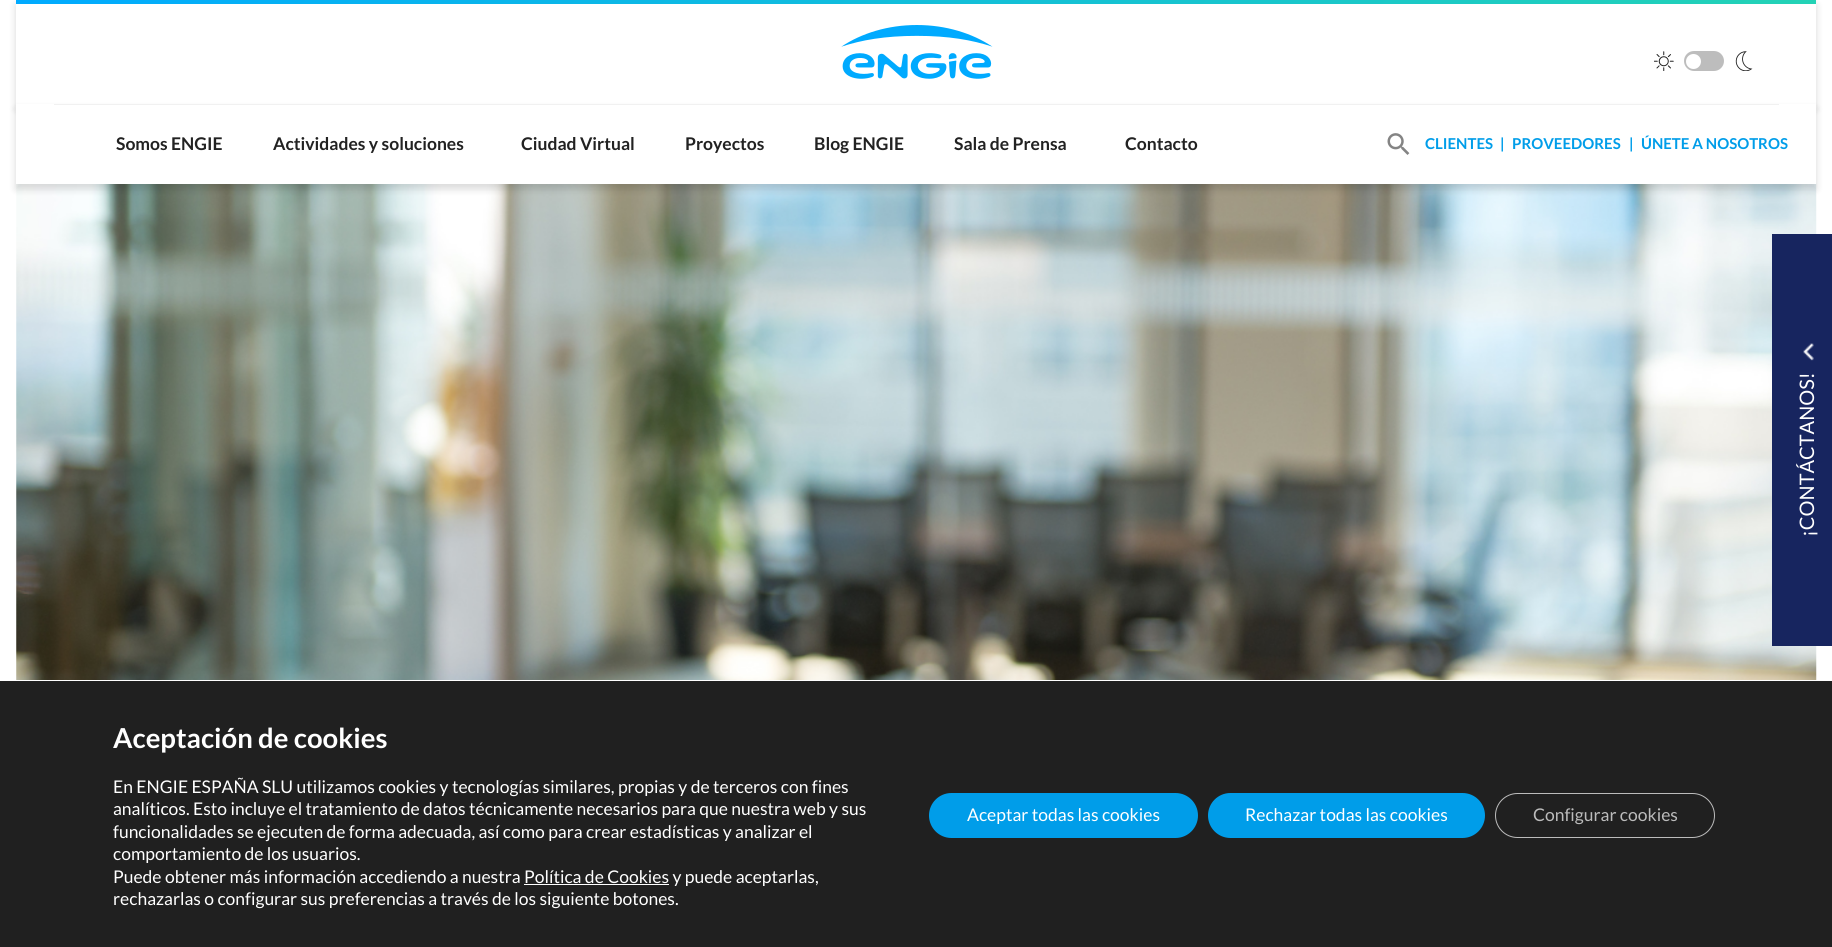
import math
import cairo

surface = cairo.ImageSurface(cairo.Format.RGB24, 1832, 947)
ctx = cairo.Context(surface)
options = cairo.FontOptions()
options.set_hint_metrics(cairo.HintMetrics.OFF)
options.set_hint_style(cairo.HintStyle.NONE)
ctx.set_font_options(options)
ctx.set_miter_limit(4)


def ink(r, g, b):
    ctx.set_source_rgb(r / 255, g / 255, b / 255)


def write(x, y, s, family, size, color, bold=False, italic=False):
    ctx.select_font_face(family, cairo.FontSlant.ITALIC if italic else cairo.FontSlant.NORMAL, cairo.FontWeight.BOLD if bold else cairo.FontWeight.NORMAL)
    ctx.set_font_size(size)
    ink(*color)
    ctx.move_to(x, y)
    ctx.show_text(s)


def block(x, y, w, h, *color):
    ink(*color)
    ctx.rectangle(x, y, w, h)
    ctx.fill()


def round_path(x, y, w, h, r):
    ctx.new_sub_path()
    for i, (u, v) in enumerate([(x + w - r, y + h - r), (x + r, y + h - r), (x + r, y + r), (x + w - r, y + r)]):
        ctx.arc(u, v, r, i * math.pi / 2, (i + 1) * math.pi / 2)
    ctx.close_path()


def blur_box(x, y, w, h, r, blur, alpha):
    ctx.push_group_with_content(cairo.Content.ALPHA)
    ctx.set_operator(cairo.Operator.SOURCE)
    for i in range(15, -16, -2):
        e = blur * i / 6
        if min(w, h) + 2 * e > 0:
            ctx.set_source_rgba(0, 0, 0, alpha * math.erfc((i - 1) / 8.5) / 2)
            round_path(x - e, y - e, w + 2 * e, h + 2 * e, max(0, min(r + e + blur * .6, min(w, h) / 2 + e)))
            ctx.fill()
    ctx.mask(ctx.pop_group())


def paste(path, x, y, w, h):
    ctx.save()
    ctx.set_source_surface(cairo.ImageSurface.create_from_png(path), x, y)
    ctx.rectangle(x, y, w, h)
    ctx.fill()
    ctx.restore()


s1 = dict(family="Lato", size=17.5, color=(34, 34, 34), bold=True)
s2 = dict(family="Lato", size=15, color=(0, 157, 233), bold=True)
s3 = dict(family="Lato", size=20, color=(255, 255, 255))
s4 = dict(family="Lato", size=27.5, color=(255, 255, 255), bold=True)
s5 = dict(family="Lato", size=17.5, color=(255, 255, 255))
s6 = dict(family="Lato", size=17.5, color=(188, 188, 188))

ink(255, 255, 255)
ctx.paint()
ink(0, 0, 0)
blur_box(16, 5, 1800, 104, 0, 4, 0.15)
block(16, 4, 1800, 100, 255, 255, 255)
gradient = cairo.LinearGradient(465, -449, 1367, 453)
gradient.add_color_stop_rgba(0, 0, 0.667, 1, 1)
gradient.add_color_stop_rgba(1, 0.137, 0.824, 0.71, 1)
ctx.set_source(gradient)
ctx.rectangle(16, 0, 1800, 4)
ctx.fill()
paste("pic1.png", 841, 25, 152, 54)
paste("pic2.png", 1654, 51, 20, 20)
ink(189, 189, 189)
round_path(1684, 51, 40, 20, 10)
ctx.fill()
ink(255, 255, 255)
ctx.arc(1693.5, 61.5, 7.5, 0, 2 * math.pi)
ctx.fill()
paste("pic3.png", 1735, 51, 18, 20)
paste("pic5.png", 16, 183, 1801, 497)
ink(0, 0, 0)
blur_box(16, 109, 1800, 80, 0, 4, 0.15)
block(16, 180, 1800, 4, 255, 255, 255)
ctx.new_path()
ctx.move_to(16, 104)
ctx.line_to(1816, 104)
ctx.line_to(1816, 180)
ctx.curve_to(1816, 182, 1814, 184, 1812, 184)
ctx.line_to(20, 184)
ctx.curve_to(18, 184, 16, 182, 16, 180)
ctx.close_path()
ctx.fill()
block(54, 104, 1725, 1, 241, 241, 241)
write(116, 150, "Somos ENGIE", **s1)
write(273, 150, "Actividades y soluciones", **s1)
write(521, 150, "Ciudad Virtual", **s1)
write(685, 150, "Proyectos", **s1)
write(814, 150, "Blog ENGIE", **s1)
write(954, 150, "Sala de Prensa", **s1)
write(1125, 150, "Contacto", **s1)
paste("pic4.png", 1387, 133, 23, 22)
write(1425, 149, "CLIENTES", **s2)
write(1500, 149, "|", **s2)
write(1512, 149, "PROVEEDORES", **s2)
write(1629, 149, "|", **s2)
write(1641, 149, "ÚNETE A NOSOTROS", **s2)
block(1772, 234, 60, 412, 23, 37, 95)
paste("pic6.png", 1803, 343, 11, 18)
ctx.save()
ctx.translate(1814, 537)
ctx.rotate(-90 * math.pi / 180)
write(0, 0, "¡CONTÁCTANOS!", **s3)
ctx.restore()
block(0, 681, 1832, 266, 32, 32, 32)
write(113, 748, "Aceptación de cookies", **s4)
write(113, 793, "En ENGIE ESPAÑA SLU utilizamos cookies y tecnologías similares, propias y de terceros con fines", **s5)
write(113, 815, "analíticos. Esto incluye el tratamiento de datos técnicamente necesarios para que nuestra web y sus", **s5)
write(113, 838, "funcionalidades se ejecuten de forma adecuada, así como para crear estadísticas y analizar el", **s5)
write(113, 860, "comportamiento de los usuarios.", **s5)
write(113, 883, "Puede obtener más información accediendo a nuestra Política de Cookies y puede aceptarlas,", **s5)
block(524, 884, 145, 1, 255, 255, 255)
write(113, 905, "rechazarlas o configurar sus preferencias a través de los siguiente botones.", **s5)
ink(0, 157, 233)
round_path(929, 793, 269, 45, 22.5)
ctx.fill()
write(967, 821, "Aceptar todas las cookies", **s5)
ink(0, 157, 233)
round_path(1208, 793, 277, 45, 22.5)
ctx.fill()
write(1245, 821, "Rechazar todas las cookies", **s5)
round_path(1495.5, 793.5, 219, 44, 22)
ink(188, 188, 188)
ctx.set_line_width(1)
ctx.stroke()
write(1533, 821, "Configurar cookies", **s6)
surface.write_to_png("screenshot.png")
